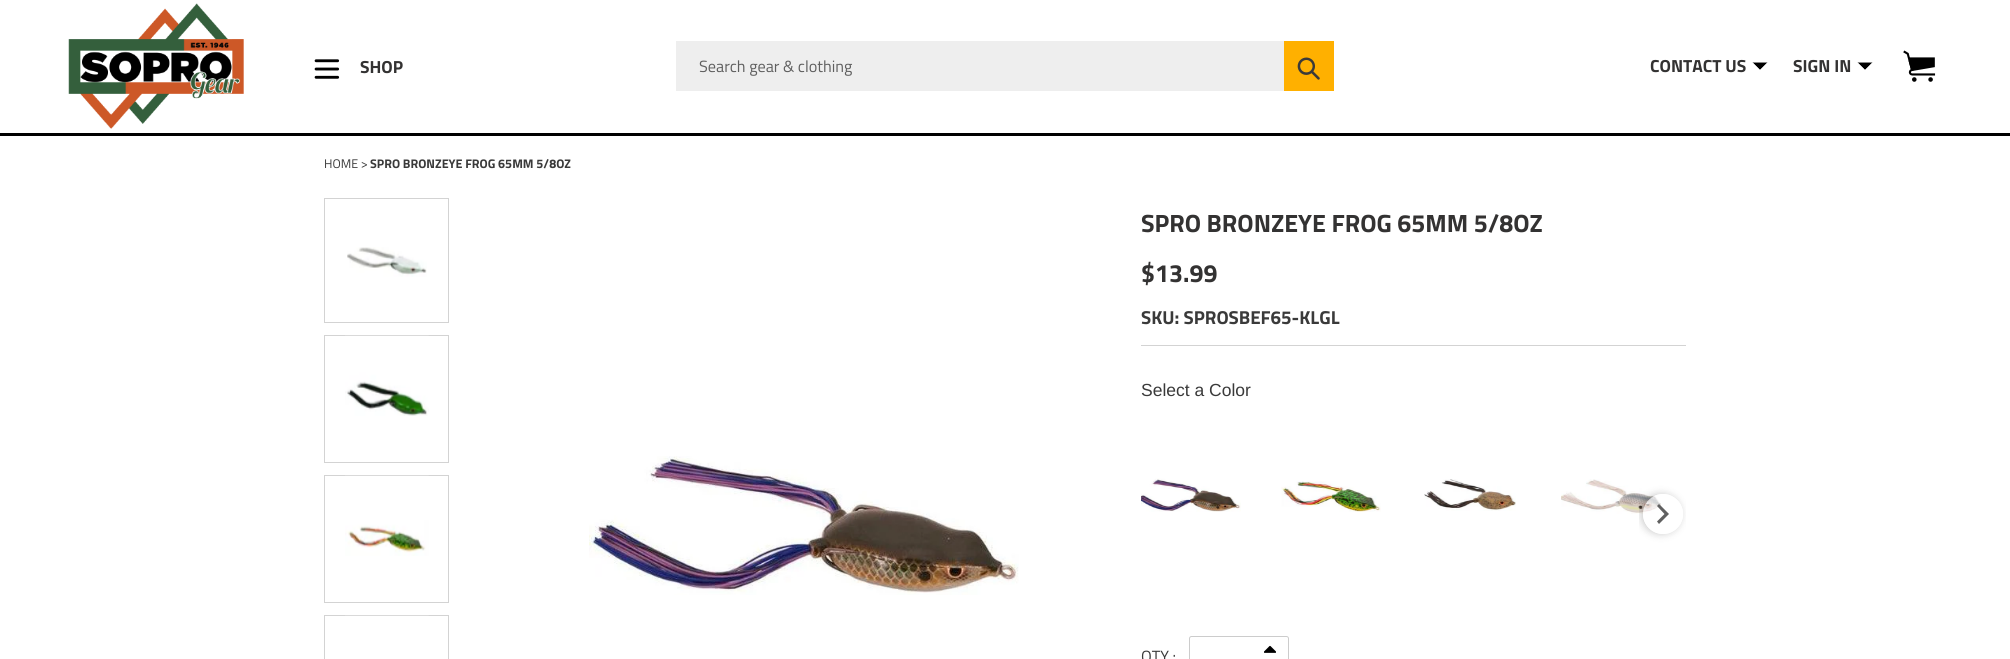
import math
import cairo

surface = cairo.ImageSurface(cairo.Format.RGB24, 2010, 659)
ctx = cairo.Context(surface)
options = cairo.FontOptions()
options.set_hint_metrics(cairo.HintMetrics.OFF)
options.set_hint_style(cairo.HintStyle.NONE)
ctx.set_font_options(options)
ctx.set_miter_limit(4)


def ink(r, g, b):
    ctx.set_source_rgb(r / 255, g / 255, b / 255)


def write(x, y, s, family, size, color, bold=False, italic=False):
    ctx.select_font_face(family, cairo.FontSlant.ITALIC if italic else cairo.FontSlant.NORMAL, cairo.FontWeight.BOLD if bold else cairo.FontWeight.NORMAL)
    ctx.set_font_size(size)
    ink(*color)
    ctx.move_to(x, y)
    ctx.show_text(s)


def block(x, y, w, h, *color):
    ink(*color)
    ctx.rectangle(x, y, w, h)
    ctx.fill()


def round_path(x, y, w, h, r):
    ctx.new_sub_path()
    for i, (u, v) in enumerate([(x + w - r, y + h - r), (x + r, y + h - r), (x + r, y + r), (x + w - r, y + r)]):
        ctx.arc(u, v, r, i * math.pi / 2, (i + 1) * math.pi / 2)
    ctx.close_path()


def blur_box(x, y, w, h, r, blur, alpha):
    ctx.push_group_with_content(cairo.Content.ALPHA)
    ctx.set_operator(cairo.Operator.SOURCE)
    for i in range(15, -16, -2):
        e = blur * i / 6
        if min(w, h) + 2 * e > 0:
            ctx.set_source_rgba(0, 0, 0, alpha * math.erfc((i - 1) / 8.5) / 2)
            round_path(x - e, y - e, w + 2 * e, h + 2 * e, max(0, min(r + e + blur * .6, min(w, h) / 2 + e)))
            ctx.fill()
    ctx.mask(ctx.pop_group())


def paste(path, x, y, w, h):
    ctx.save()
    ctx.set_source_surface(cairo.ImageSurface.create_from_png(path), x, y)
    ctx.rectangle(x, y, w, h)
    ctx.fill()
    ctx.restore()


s1 = dict(family="Cairo", size=17.5, color=(51, 50, 50), bold=True)
s2 = dict(family="Cairo", size=16.25, color=(95, 95, 95))
s3 = dict(family="Cairo", size=12.5, color=(58, 58, 58))
s4 = dict(family="Cairo", size=12.5, color=(58, 58, 58), bold=True)
s5 = dict(family="Cairo", size=25, color=(51, 50, 50), bold=True)
s6 = dict(family="Cairo", size=18.75, color=(58, 58, 58), bold=True)
s7 = dict(family="Liberation Sans", size=17.5, color=(58, 58, 58))
s8 = dict(family="Cairo", size=16.25, color=(58, 58, 58))

ink(255, 255, 255)
ctx.paint()
block(0, 133, 2010, 3, 0, 0, 0)
paste("pic1.png", 68, 3, 176, 126)
paste("pic2.png", 314, 59, 26, 20)
write(360, 73, "SHOP", **s1)
block(676, 41, 608, 50, 238, 238, 238)
write(699, 72, "Search gear & clothing", **s2)
block(1284, 41, 50, 50, 255, 176, 0)
paste("pic3.png", 1297, 57, 23, 23)
write(1650, 72, "CONTACT US", **s1)
ink(0, 0, 0)
ctx.new_path()
ctx.move_to(1752.5, 62.5)
ctx.line_to(1767.5, 62.5)
ctx.line_to(1760, 70)
ctx.close_path()
ctx.fill()
ink(255, 255, 255)
ctx.new_path()
ctx.move_to(1767.5, 62.5)
ctx.line_to(1767.5, 70)
ctx.line_to(1760, 70)
ctx.close_path()
ctx.move_to(1752.5, 70)
ctx.line_to(1752.5, 62.5)
ctx.line_to(1760, 70)
ctx.close_path()
ctx.fill()
write(1793, 72, "SIGN IN", **s1)
ink(0, 0, 0)
ctx.new_path()
ctx.move_to(1857.5, 62.5)
ctx.line_to(1872.5, 62.5)
ctx.line_to(1865, 70)
ctx.close_path()
ctx.fill()
ink(255, 255, 255)
ctx.new_path()
ctx.move_to(1872.5, 62.5)
ctx.line_to(1872.5, 70)
ctx.line_to(1865, 70)
ctx.close_path()
ctx.move_to(1857.5, 70)
ctx.line_to(1857.5, 62.5)
ctx.line_to(1865, 70)
ctx.close_path()
ctx.fill()
paste("pic4.png", 1903, 50, 33, 32)
write(324, 168, "HOME >", **s3)
write(370, 168, "SPRO BRONZEYE FROG 65MM 5/8OZ", **s4)
ctx.rectangle(324.5, 198.5, 124, 124)
ink(211, 211, 211)
ctx.set_line_width(1)
ctx.stroke()
paste("pic5.png", 347, 247, 80, 30)
ctx.rectangle(324.5, 335.5, 124, 127)
ctx.stroke()
paste("pic6.png", 345, 335, 84, 81)
ctx.rectangle(324.5, 475.5, 124, 127)
ctx.stroke()
paste("pic7.png", 345, 475, 84, 81)
ctx.rectangle(324.5, 615.5, 124, 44)
ctx.stroke()
paste("pic8.png", 345, 615, 84, 1)
paste("pic9.png", 589, 456, 430, 139)
block(1141, 345, 545, 1, 211, 211, 211)
write(1141, 232, "SPRO BRONZEYE FROG 65MM 5/8OZ", **s5)
write(1141, 282, "$13.99", **s5)
write(1141, 324, "SKU: SPROSBEF65-KLGL", **s6)
write(1141, 396, "Select a Color", **s7)
paste("pic10.png", 1141, 478, 100, 34)
paste("pic11.png", 1281, 481, 100, 31)
paste("pic12.png", 1424, 479, 92, 32)
paste("pic13.png", 1561, 479, 100, 35)
paste("pic14.png", 1561, 496, 1, 4)
ctx.save()
ctx.rectangle(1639, 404, 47, 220)
ctx.clip()
ctx.set_fill_rule(cairo.FillRule.EVEN_ODD)
ctx.new_path()
ctx.move_to(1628, 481)
ctx.line_to(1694, 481)
ctx.line_to(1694, 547)
ctx.line_to(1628, 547)
ctx.close_path()
ctx.move_to(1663, 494)
ctx.curve_to(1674, 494, 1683, 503, 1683, 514)
ctx.curve_to(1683, 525, 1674, 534, 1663, 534)
ctx.curve_to(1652, 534, 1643, 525, 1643, 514)
ctx.curve_to(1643, 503, 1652, 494, 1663, 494)
ctx.close_path()
ctx.clip()
ink(0, 0, 0)
blur_box(1641, 494, 40, 40, 20, 4, 0.2)
ctx.restore()
ctx.set_source_rgba(1, 1, 1, 0.65)
ctx.arc(1663, 514, 20, 0, 2 * math.pi)
ctx.fill()
ink(96, 96, 96)
ctx.new_path()
ctx.move_to(1657, 521.5)
ctx.line_to(1664.5, 514)
ctx.line_to(1657, 506)
ctx.line_to(1659, 504)
ctx.line_to(1669, 514)
ctx.line_to(1659, 524)
ctx.close_path()
ctx.fill()
write(1141, 662, "QTY :", **s8)
round_path(1189.5, 636.5, 99, 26, 2)
ink(204, 204, 204)
ctx.stroke()
paste("pic15.png", 1264, 645, 12, 8)
surface.write_to_png("screenshot.png")
